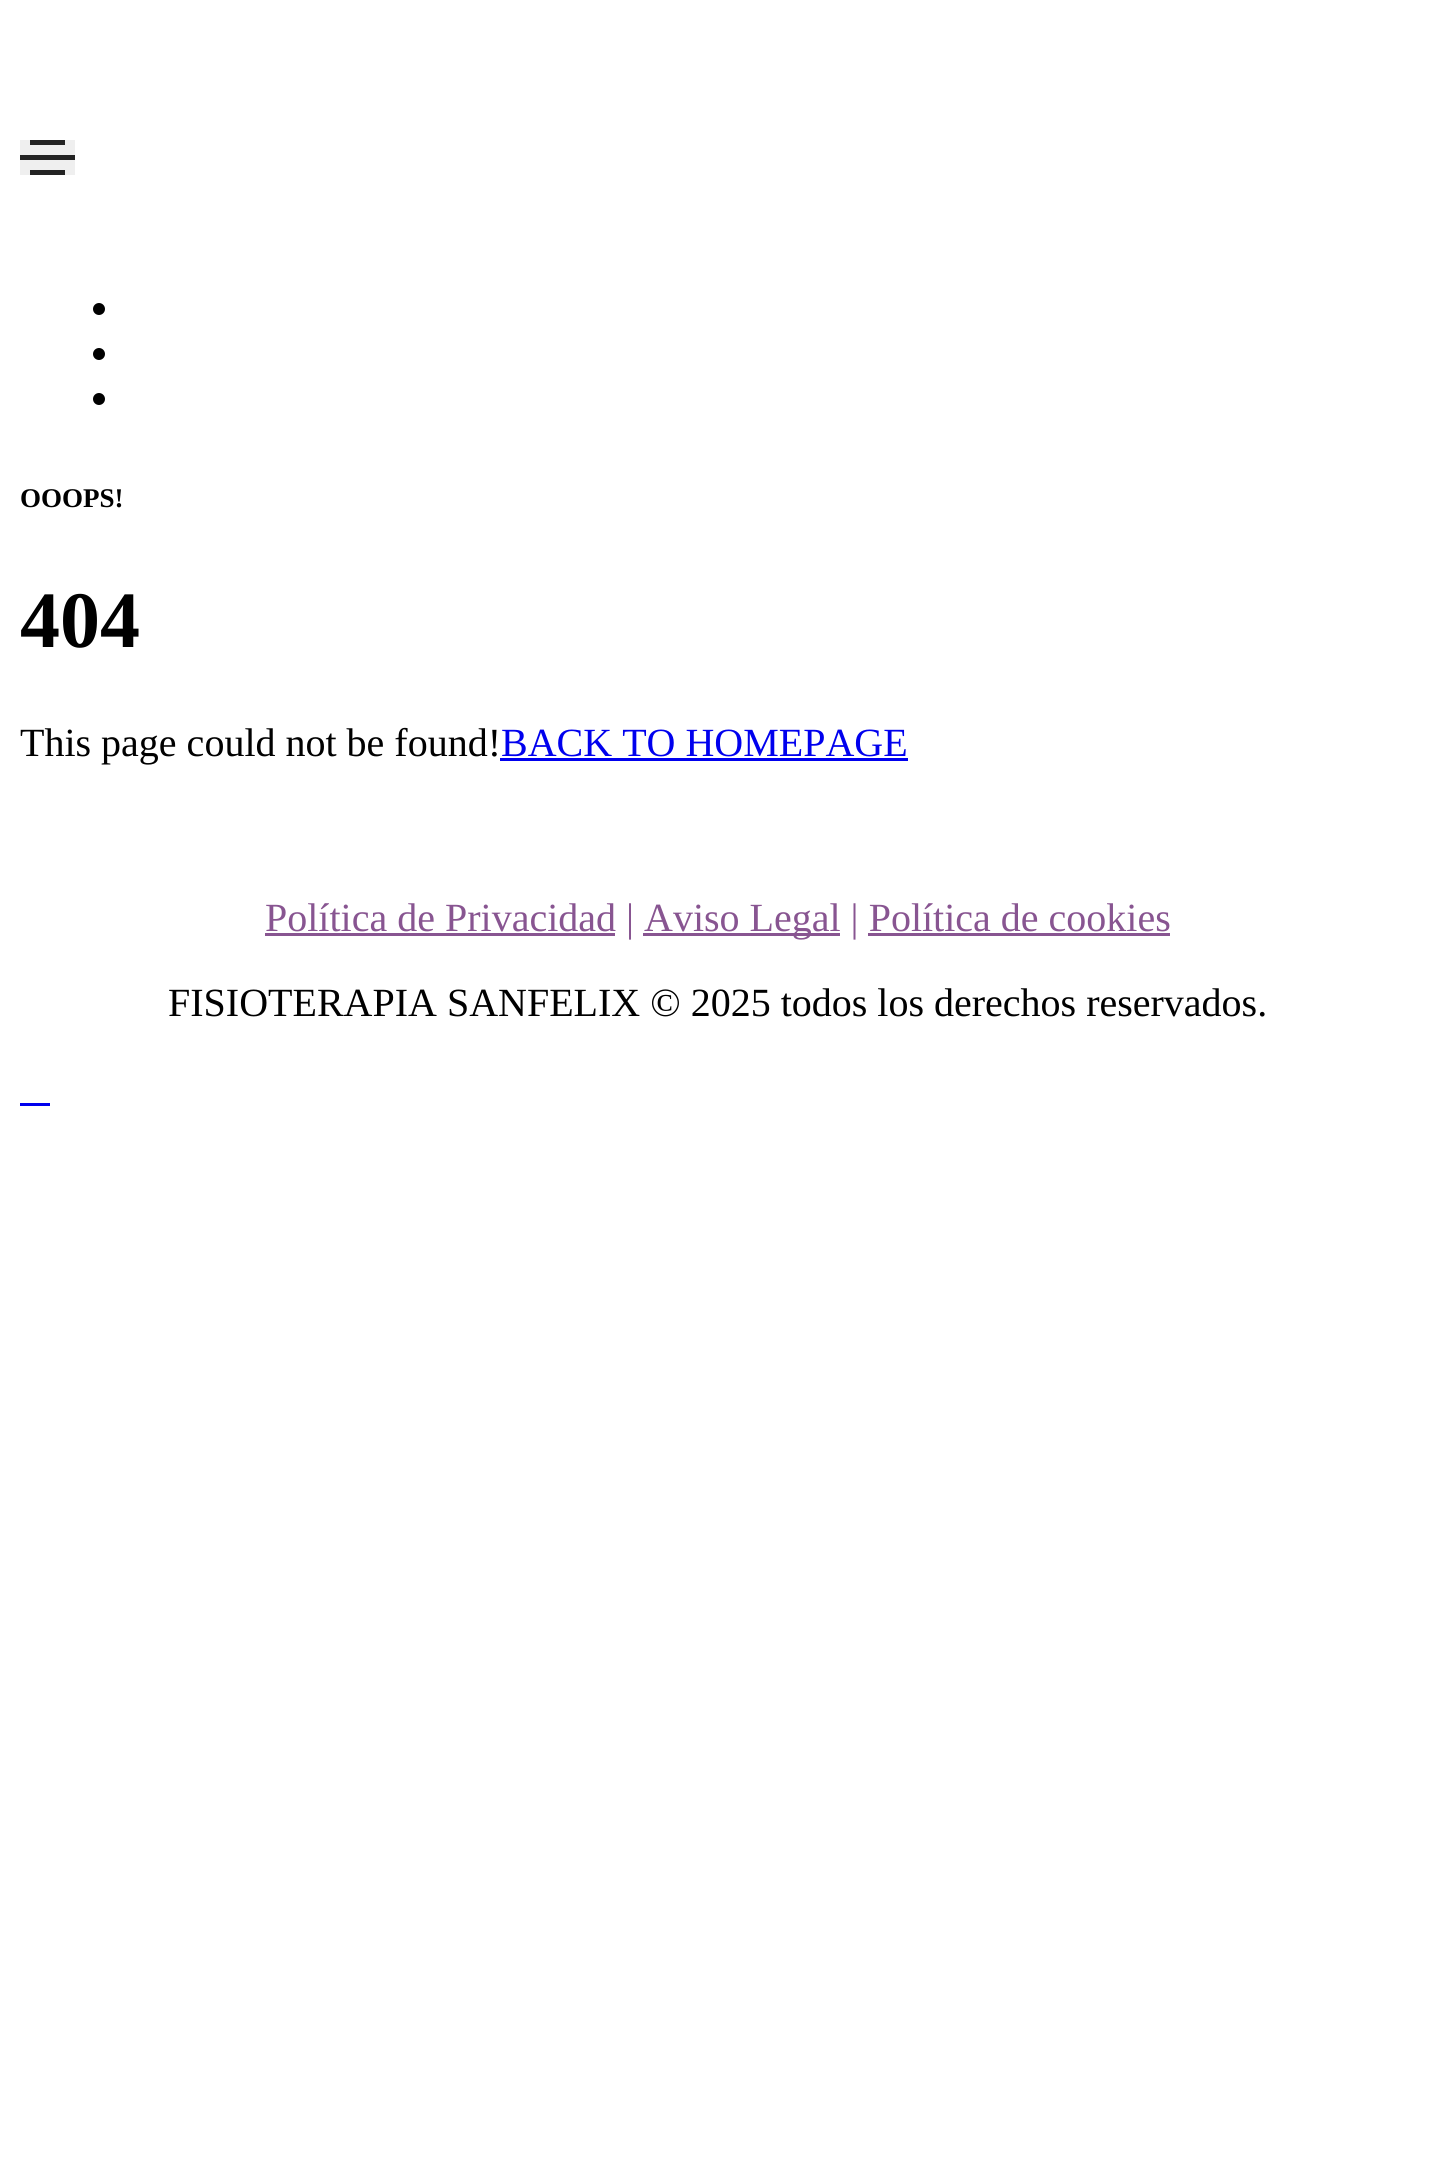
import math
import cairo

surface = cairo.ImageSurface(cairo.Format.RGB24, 1435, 2165)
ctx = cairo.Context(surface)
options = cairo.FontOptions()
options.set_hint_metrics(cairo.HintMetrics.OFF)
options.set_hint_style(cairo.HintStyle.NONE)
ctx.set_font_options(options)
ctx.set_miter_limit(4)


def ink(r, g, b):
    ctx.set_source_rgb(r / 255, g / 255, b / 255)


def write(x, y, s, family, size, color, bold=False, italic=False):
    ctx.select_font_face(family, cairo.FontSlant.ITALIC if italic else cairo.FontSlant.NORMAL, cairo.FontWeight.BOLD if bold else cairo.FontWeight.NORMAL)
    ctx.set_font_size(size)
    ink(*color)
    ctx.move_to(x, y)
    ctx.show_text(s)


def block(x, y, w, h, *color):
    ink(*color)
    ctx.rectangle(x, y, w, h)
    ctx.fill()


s1 = dict(family="Liberation Serif", size=27, color=(0, 0, 0), bold=True)
s2 = dict(family="Liberation Serif", size=80, color=(0, 0, 0), bold=True)
s3 = dict(family="Liberation Serif", size=40, color=(0, 0, 0))
s4 = dict(family="Liberation Serif", size=40, color=(0, 0, 238))
s5 = dict(family="Liberation Serif", size=40, color=(136, 85, 145))

ink(255, 255, 255)
ctx.paint()
block(20, 140, 55, 35, 239, 239, 239)
block(30, 140, 35, 5, 35, 35, 35)
block(20, 155, 55, 5, 35, 35, 35)
block(30, 170, 35, 5, 35, 35, 35)
ink(0, 0, 0)
ctx.arc(99, 309, 6, 0, 2 * math.pi)
ctx.fill()
ctx.arc(99, 354, 6, 0, 2 * math.pi)
ctx.fill()
ctx.arc(99, 399, 6, 0, 2 * math.pi)
ctx.fill()
write(20, 507, "OOOPS!", **s1)
write(20, 647, "404", **s2)
write(20, 756, "This page could not be found!", **s3)
write(501, 756, "BACK TO HOMEPAGE", **s4)
block(500, 758, 408, 3, 0, 0, 238)
block(265, 933, 350, 3, 136, 85, 145)
write(265, 931, "Política de Privacidad |", **s5)
block(643, 933, 197, 3, 136, 85, 145)
write(644, 931, "Aviso Legal | Política de cookies", **s5)
block(868, 933, 302, 3, 136, 85, 145)
write(168, 1016, "FISIOTERAPIA SANFELIX © 2025 todos los derechos reservados.", **s3)
block(20, 1103, 30, 3, 0, 0, 238)
surface.write_to_png("screenshot.png")
